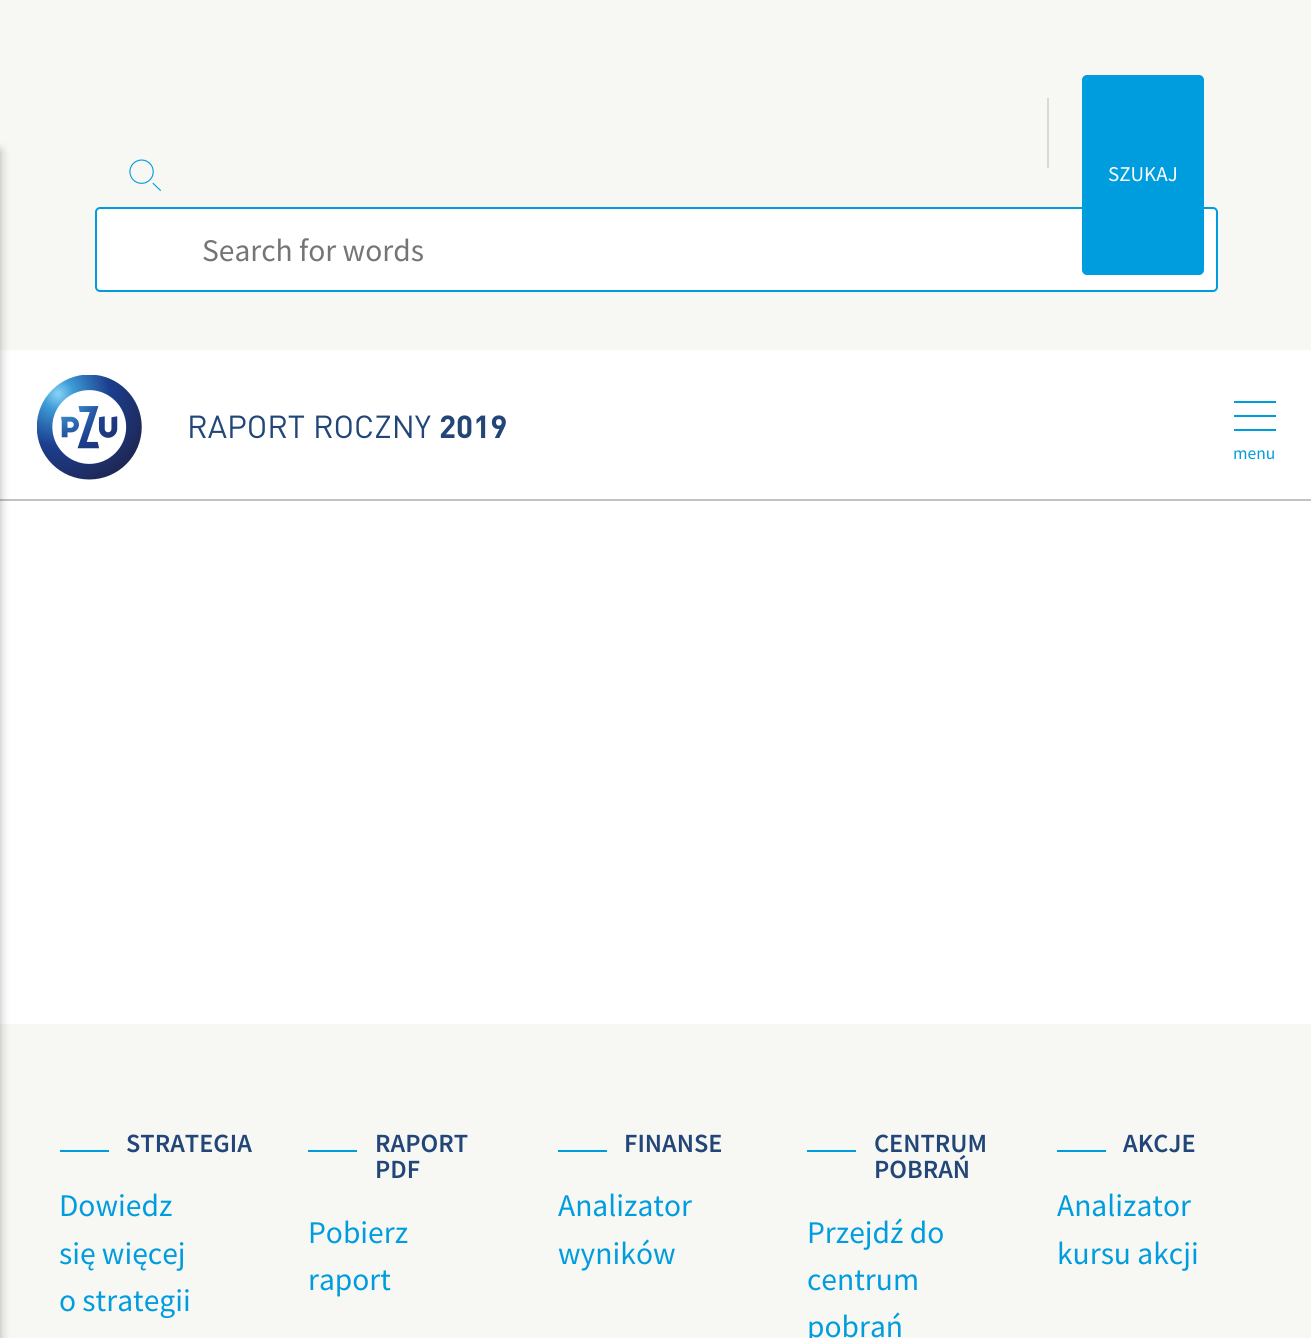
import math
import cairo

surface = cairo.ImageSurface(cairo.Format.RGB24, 1311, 1338)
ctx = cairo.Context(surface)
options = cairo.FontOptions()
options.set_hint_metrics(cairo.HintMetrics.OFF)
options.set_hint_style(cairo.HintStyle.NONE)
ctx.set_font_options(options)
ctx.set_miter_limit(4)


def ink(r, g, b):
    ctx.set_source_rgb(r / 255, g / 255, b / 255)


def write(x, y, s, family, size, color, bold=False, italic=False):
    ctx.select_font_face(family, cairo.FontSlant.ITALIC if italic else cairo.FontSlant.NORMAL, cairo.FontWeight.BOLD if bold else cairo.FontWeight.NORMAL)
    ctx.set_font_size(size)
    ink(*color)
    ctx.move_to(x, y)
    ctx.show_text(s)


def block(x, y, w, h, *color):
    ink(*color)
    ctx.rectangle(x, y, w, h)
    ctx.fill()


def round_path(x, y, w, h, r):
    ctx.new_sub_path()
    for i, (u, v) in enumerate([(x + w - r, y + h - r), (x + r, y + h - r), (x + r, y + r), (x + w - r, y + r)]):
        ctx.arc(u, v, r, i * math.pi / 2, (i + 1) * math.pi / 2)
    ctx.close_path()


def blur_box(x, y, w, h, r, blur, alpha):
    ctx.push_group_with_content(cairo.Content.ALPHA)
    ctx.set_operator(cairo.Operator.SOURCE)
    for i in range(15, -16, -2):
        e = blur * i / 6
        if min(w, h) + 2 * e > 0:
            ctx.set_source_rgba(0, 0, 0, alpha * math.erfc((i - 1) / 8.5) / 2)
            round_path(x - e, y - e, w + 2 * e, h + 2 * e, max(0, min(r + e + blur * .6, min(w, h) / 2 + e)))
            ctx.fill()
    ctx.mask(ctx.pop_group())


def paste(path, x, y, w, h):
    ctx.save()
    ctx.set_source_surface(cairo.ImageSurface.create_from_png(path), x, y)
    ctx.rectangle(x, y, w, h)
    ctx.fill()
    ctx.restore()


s1 = dict(family="Source Sans Pro", size=21, color=(255, 255, 255))
s2 = dict(family="Source Sans Pro", size=31.5, color=(117, 117, 117))
s3 = dict(family="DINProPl", size=31.5, color=(35, 70, 120))
s4 = dict(family="DINProPl", size=31.5, color=(35, 70, 120), bold=True)
s5 = dict(family="Source Sans Pro", size=17.5, color=(0, 157, 222))
s6 = dict(family="Source Sans Pro SemiBold", size=26.25, color=(35, 70, 120))
s7 = dict(family="Source Sans Pro", size=31.5, color=(0, 157, 222))

ink(255, 255, 255)
ctx.paint()
block(0, 0, 1311, 350, 247, 247, 244)
block(0, 499, 1311, 2, 194, 194, 194)
block(0, 1024, 1311, 314, 247, 247, 244)
ink(0, 0, 0)
blur_box(-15, 151, 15, 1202, 0, 5, 0.3)
block(1047, 98, 2, 70, 216, 216, 216)
ink(255, 255, 255)
round_path(96, 208, 1121, 83, 4)
ctx.fill_preserve()
ink(0, 157, 222)
ctx.stroke()
round_path(1082, 75, 122, 200, 5)
ctx.fill()
write(1108, 181, "SZUKAJ", **s1)
paste("pic1.png", 129, 159, 32, 32)
write(202, 261, "Search for words", **s2)
paste("pic2.png", 37, 375, 105, 105)
write(187, 438, "RAPORT ROCZNY", **s3)
write(439, 438, "2019", **s4)
block(1234, 415, 42, 2, 0, 157, 222)
block(1234, 401, 42, 2, 0, 157, 222)
block(1234, 429, 42, 2, 0, 157, 222)
write(1233, 459, "menu", **s5)
block(60, 1150, 49, 2, 0, 157, 222)
write(126, 1152, "STRATEGIA", **s6)
write(59, 1216, "Dowiedz", **s7)
write(59, 1264, "się więcej", **s7)
write(59, 1311, "o strategii", **s7)
block(308, 1150, 49, 2, 0, 157, 222)
write(375, 1152, "RAPORT", **s6)
write(375, 1178, "PDF", **s6)
write(308, 1243, "Pobierz", **s7)
write(308, 1290, "raport", **s7)
block(558, 1150, 49, 2, 0, 157, 222)
write(624, 1152, "FINANSE", **s6)
write(558, 1216, "Analizator", **s7)
write(558, 1264, "wyników", **s7)
block(807, 1150, 49, 2, 0, 157, 222)
write(874, 1152, "CENTRUM", **s6)
write(874, 1178, "POBRAŃ", **s6)
write(807, 1243, "Przejdź do", **s7)
write(807, 1290, "centrum", **s7)
write(807, 1337, "pobrań", **s7)
block(1057, 1150, 49, 2, 0, 157, 222)
write(1123, 1152, "AKCJE", **s6)
write(1057, 1216, "Analizator", **s7)
write(1057, 1264, "kursu akcji", **s7)
surface.write_to_png("screenshot.png")
